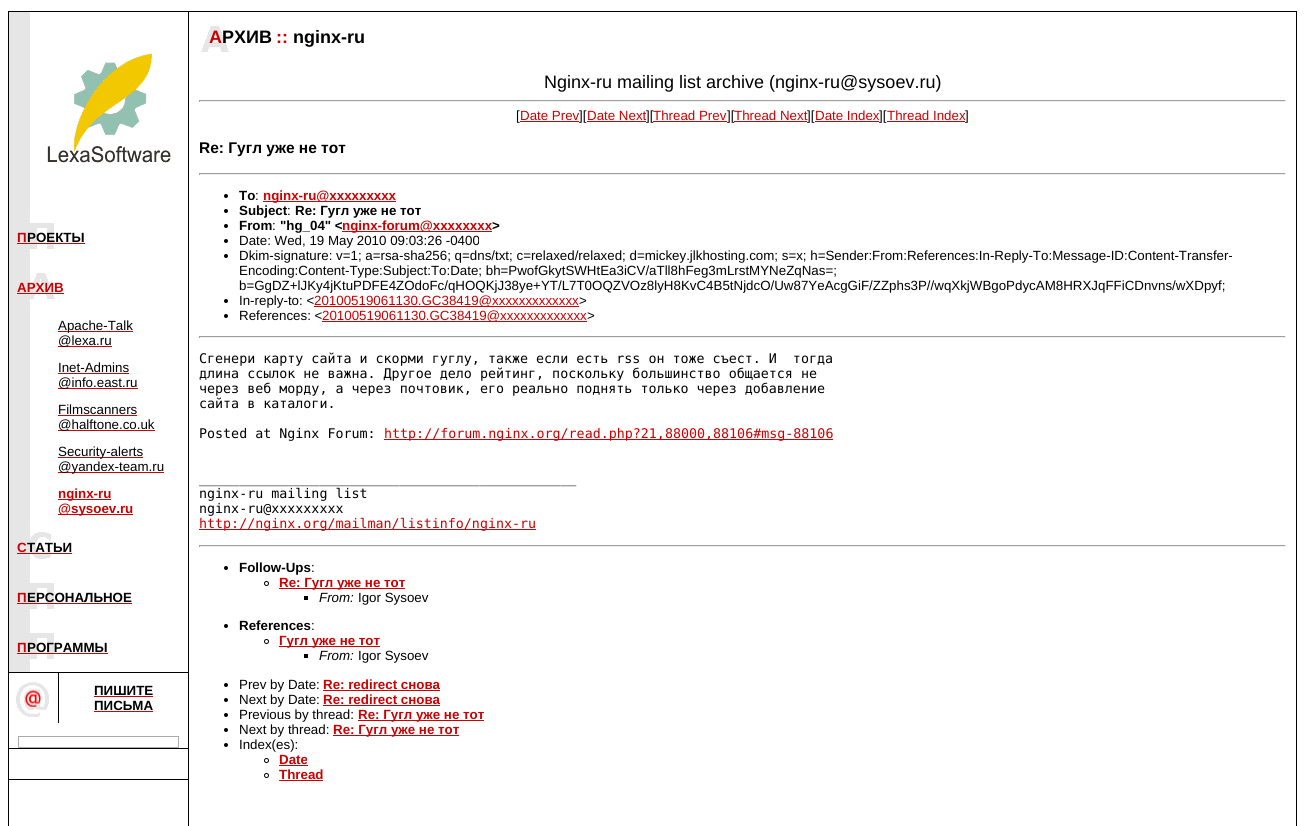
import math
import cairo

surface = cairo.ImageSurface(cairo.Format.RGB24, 1305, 826)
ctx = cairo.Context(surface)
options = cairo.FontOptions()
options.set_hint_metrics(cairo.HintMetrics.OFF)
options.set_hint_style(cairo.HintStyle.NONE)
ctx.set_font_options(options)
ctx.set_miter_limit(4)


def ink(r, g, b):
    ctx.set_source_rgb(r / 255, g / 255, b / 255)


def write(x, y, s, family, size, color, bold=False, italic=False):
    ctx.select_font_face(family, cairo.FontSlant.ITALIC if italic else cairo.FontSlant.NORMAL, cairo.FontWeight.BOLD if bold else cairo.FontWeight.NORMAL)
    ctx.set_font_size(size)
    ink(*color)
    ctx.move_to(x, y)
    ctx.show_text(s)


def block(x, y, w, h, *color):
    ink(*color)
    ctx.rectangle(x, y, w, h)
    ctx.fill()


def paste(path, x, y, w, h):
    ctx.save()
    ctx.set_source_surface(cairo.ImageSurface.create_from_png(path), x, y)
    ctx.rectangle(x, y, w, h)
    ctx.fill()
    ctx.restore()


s1 = dict(family="Liberation Sans", size=13.33, color=(204, 0, 0), bold=True)
s2 = dict(family="Liberation Sans", size=13.33, color=(0, 0, 0), bold=True)
s3 = dict(family="Liberation Sans", size=13.33, color=(0, 0, 0))
s4 = dict(family="Liberation Sans", size=18, color=(204, 0, 0), bold=True)
s5 = dict(family="Liberation Sans", size=18, color=(0, 0, 0), bold=True)
s6 = dict(family="Liberation Sans", size=18, color=(0, 0, 0))
s7 = dict(family="Liberation Sans", size=13.33, color=(204, 0, 0))
s8 = dict(family="Liberation Sans", size=15.5, color=(0, 0, 0), bold=True)
s9 = dict(family="DejaVu Sans Mono", size=13.33, color=(0, 0, 0))
s10 = dict(family="DejaVu Sans Mono", size=13.33, color=(204, 0, 0))
s11 = dict(family="Liberation Sans", size=13.33, color=(0, 0, 0), italic=True)

ink(255, 255, 255)
ctx.paint()
block(8, 11, 1289, 1, 0, 0, 0)
block(8, 12, 1, 814, 0, 0, 0)
paste("pic1.png", 9, 12, 162, 200)
block(9, 212, 1, 460, 230, 230, 230)
paste("pic2.png", 10, 212, 44, 50)
write(17, 242, "П", **s1)
write(27, 242, "РОЕКТЫ", **s2)
block(17, 243, 68, 1, 204, 0, 0)
paste("pic3.png", 10, 262, 45, 50)
write(17, 292, "АРХИВ", **s1)
block(17, 293, 47, 1, 204, 0, 0)
block(10, 312, 20, 210, 230, 230, 230)
block(58, 331, 75, 1, 204, 0, 0)
write(58, 330, "Apache-Talk", **s3)
block(58, 346, 54, 1, 204, 0, 0)
write(58, 345, "@lexa.ru", **s3)
write(58, 372, "Inet-Admins", **s3)
block(58, 373, 71, 1, 204, 0, 0)
block(58, 388, 80, 1, 204, 0, 0)
write(58, 387, "@info.east.ru", **s3)
write(58, 414, "Filmscanners", **s3)
block(58, 415, 79, 1, 204, 0, 0)
block(58, 430, 97, 1, 204, 0, 0)
write(58, 429, "@halftone.co.uk", **s3)
block(58, 457, 85, 1, 204, 0, 0)
write(58, 456, "Security-alerts", **s3)
block(58, 472, 106, 1, 204, 0, 0)
write(58, 471, "@yandex-team.ru", **s3)
block(58, 499, 53, 1, 204, 0, 0)
write(58, 498, "nginx-ru", **s1)
block(58, 514, 75, 1, 204, 0, 0)
write(58, 513, "@sysoev.ru", **s1)
paste("pic4.png", 10, 522, 41, 50)
write(17, 552, "С", **s1)
block(17, 553, 55, 1, 204, 0, 0)
write(27, 552, "ТАТЬИ", **s2)
paste("pic2.png", 10, 572, 44, 50)
write(17, 602, "П", **s1)
write(27, 602, "ЕРСОНАЛЬНОЕ", **s2)
block(17, 603, 115, 1, 204, 0, 0)
paste("pic2.png", 10, 622, 44, 50)
write(17, 652, "П", **s1)
write(27, 652, "РОГРАММЫ", **s2)
block(17, 653, 91, 1, 204, 0, 0)
block(9, 672, 179, 1, 0, 0, 0)
paste("pic5.png", 16, 673, 43, 50)
write(94, 695, "ПИШИТЕ", **s2)
block(94, 696, 59, 1, 204, 0, 0)
write(94, 710, "ПИСЬМА", **s2)
block(94, 711, 59, 1, 204, 0, 0)
block(18, 736, 161, 12, 170, 170, 170)
block(19, 737, 159, 10, 255, 255, 255)
block(9, 748, 179, 1, 0, 0, 0)
block(9, 779, 179, 1, 0, 0, 0)
block(188, 12, 1, 814, 0, 0, 0)
paste("pic6.png", 201, 26, 28, 26)
write(209, 43, "А", **s4)
write(222, 43, "РХИВ", **s5)
write(276, 43, "::", **s4)
write(293, 43, "nginx-ru", **s5)
write(544, 88, "Nginx-ru mailing list archive (nginx-ru@sysoev.ru)", **s6)
block(199, 100, 1087, 1, 159, 159, 159)
block(1285, 100, 1, 2, 238, 238, 238)
block(199, 101, 1087, 1, 238, 238, 238)
block(199, 100, 1, 2, 159, 159, 159)
write(516, 120, "[", **s3)
write(520, 120, "Date Prev", **s7)
block(520, 121, 59, 1, 204, 0, 0)
write(579, 120, "][", **s3)
write(587, 120, "Date Next", **s7)
block(587, 121, 59, 1, 204, 0, 0)
write(646, 120, "][", **s3)
write(653, 120, "Thread Prev", **s7)
block(653, 121, 74, 1, 204, 0, 0)
write(727, 120, "][", **s3)
write(734, 120, "Thread Next", **s7)
block(734, 121, 73, 1, 204, 0, 0)
write(807, 120, "][", **s3)
write(815, 120, "Date Index", **s7)
block(815, 121, 64, 1, 204, 0, 0)
write(879, 120, "][", **s3)
write(887, 120, "Thread Index", **s7)
block(887, 121, 78, 1, 204, 0, 0)
write(965, 120, "]", **s3)
write(199, 153, "Re: Гугл уже не тот", **s8)
block(199, 173, 1087, 1, 159, 159, 159)
block(1285, 173, 1, 2, 238, 238, 238)
block(199, 174, 1087, 1, 238, 238, 238)
block(199, 173, 1, 2, 159, 159, 159)
ink(0, 0, 0)
ctx.new_path()
ctx.arc(226, 196, 2, 0, 2 * math.pi)
ctx.fill()
write(239, 200, "To", **s2)
write(255, 200, ":", **s3)
block(263, 201, 133, 1, 204, 0, 0)
write(263, 200, "nginx-ru@xxxxxxxxx", **s1)
ink(0, 0, 0)
ctx.new_path()
ctx.arc(226, 211, 2, 0, 2 * math.pi)
ctx.fill()
write(239, 215, "Subject", **s2)
write(287, 215, ":", **s3)
write(295, 215, "Re: Гугл уже не тот", **s2)
ctx.new_path()
ctx.arc(226, 226, 2, 0, 2 * math.pi)
ctx.fill()
write(239, 230, "From", **s2)
write(272, 230, ":", **s3)
write(280, 230, "\"hg_04\" <", **s2)
block(342, 231, 150, 1, 204, 0, 0)
write(342, 230, "nginx-forum@xxxxxxxx", **s1)
write(492, 230, ">", **s2)
ctx.new_path()
ctx.arc(226, 241, 2, 0, 2 * math.pi)
ctx.fill()
write(239, 245, "Date: Wed, 19 May 2010 09:03:26 -0400", **s3)
ctx.new_path()
ctx.arc(226, 256, 2, 0, 2 * math.pi)
ctx.fill()
write(239, 260, "Dkim-signature: v=1; a=rsa-sha256; q=dns/txt; c=relaxed/relaxed; d=mickey.jlkhosting.com; s=x; h=Sender:From:References:In-Reply-To:Message-ID:Content-Transfer-", **s3)
write(239, 275, "Encoding:Content-Type:Subject:To:Date; bh=PwofGkytSWHtEa3iCV/aTll8hFeg3mLrstMYNeZqNas=;", **s3)
write(239, 290, "b=GgDZ+lJKy4jKtuPDFE4ZOdoFc/qHOQKjJ38ye+YT/L7T0OQZVOz8lyH8KvC4B5tNjdcO/Uw87YeAcgGiF/ZZphs3P//wqXkjWBgoPdycAM8HRXJqFFiCDnvns/wXDpyf;", **s3)
ctx.new_path()
ctx.arc(226, 301, 2, 0, 2 * math.pi)
ctx.fill()
write(239, 305, "In-reply-to: <", **s3)
block(314, 306, 265, 1, 204, 0, 0)
write(314, 305, "20100519061130.GC38419@xxxxxxxxxxxxx", **s7)
write(579, 305, ">", **s3)
ctx.new_path()
ctx.arc(226, 316, 2, 0, 2 * math.pi)
ctx.fill()
write(239, 320, "References: <", **s3)
block(322, 321, 265, 1, 204, 0, 0)
write(322, 320, "20100519061130.GC38419@xxxxxxxxxxxxx", **s7)
write(587, 320, ">", **s3)
block(199, 336, 1087, 1, 159, 159, 159)
block(1285, 336, 1, 2, 238, 238, 238)
block(199, 337, 1087, 1, 238, 238, 238)
block(199, 336, 1, 2, 159, 159, 159)
write(199, 363, "Сгенери карту сайта и скорми гуглу, также если есть rss он тоже съест. И  тогда", **s9)
write(199, 378, "длина ссылок не важна. Другое дело рейтинг, поскольку большинство общается не", **s9)
write(199, 393, "через веб морду, а через почтовик, его реально поднять только через добавление", **s9)
write(199, 408, "сайта в каталоги.", **s9)
write(199, 438, "Posted at Nginx Forum:", **s9)
block(384, 439, 449, 1, 204, 0, 0)
write(384, 438, "http://forum.nginx.org/read.php?21,88000,88106#msg-88106", **s10)
write(199, 483, "_______________________________________________", **s9)
write(199, 498, "nginx-ru mailing list", **s9)
write(199, 513, "nginx-ru@xxxxxxxxx", **s9)
block(199, 529, 337, 1, 204, 0, 0)
write(199, 528, "http://nginx.org/mailman/listinfo/nginx-ru", **s10)
block(199, 545, 1087, 1, 159, 159, 159)
block(1285, 545, 1, 2, 238, 238, 238)
block(199, 546, 1087, 1, 238, 238, 238)
block(199, 545, 1, 2, 159, 159, 159)
ink(0, 0, 0)
ctx.new_path()
ctx.arc(226, 568, 2, 0, 2 * math.pi)
ctx.fill()
write(239, 572, "Follow-Ups", **s2)
write(311, 572, ":", **s3)
ctx.new_path()
ctx.arc(266.5, 583.5, 2, 0, 2 * math.pi)
ctx.set_line_width(1)
ctx.stroke()
block(279, 588, 126, 1, 204, 0, 0)
write(279, 587, "Re: Гугл уже не тот", **s1)
block(304, 596, 4, 4, 0, 0, 0)
write(319, 602, "From:", **s11)
write(358, 602, "Igor Sysoev", **s3)
ctx.new_path()
ctx.arc(226, 626, 2, 0, 2 * math.pi)
ctx.fill()
write(239, 630, "References", **s2)
write(311, 630, ":", **s3)
ctx.new_path()
ctx.arc(266.5, 641.5, 2, 0, 2 * math.pi)
ctx.stroke()
block(279, 646, 101, 1, 204, 0, 0)
write(279, 645, "Гугл уже не тот", **s1)
block(304, 654, 4, 4, 0, 0, 0)
write(319, 660, "From:", **s11)
write(358, 660, "Igor Sysoev", **s3)
ctx.new_path()
ctx.arc(226, 685, 2, 0, 2 * math.pi)
ctx.fill()
write(239, 689, "Prev by Date:", **s3)
write(323, 689, "Re: redirect снова", **s1)
block(323, 690, 117, 1, 204, 0, 0)
ink(0, 0, 0)
ctx.new_path()
ctx.arc(226, 700, 2, 0, 2 * math.pi)
ctx.fill()
write(239, 704, "Next by Date:", **s3)
write(323, 704, "Re: redirect снова", **s1)
block(323, 705, 117, 1, 204, 0, 0)
ink(0, 0, 0)
ctx.new_path()
ctx.arc(226, 715, 2, 0, 2 * math.pi)
ctx.fill()
write(239, 719, "Previous by thread:", **s3)
block(358, 720, 126, 1, 204, 0, 0)
write(358, 719, "Re: Гугл уже не тот", **s1)
ink(0, 0, 0)
ctx.new_path()
ctx.arc(226, 730, 2, 0, 2 * math.pi)
ctx.fill()
write(239, 734, "Next by thread:", **s3)
block(333, 735, 126, 1, 204, 0, 0)
write(333, 734, "Re: Гугл уже не тот", **s1)
ink(0, 0, 0)
ctx.new_path()
ctx.arc(226, 745, 2, 0, 2 * math.pi)
ctx.fill()
write(239, 749, "Index(es):", **s3)
ctx.new_path()
ctx.arc(266.5, 760.5, 2, 0, 2 * math.pi)
ctx.stroke()
write(279, 764, "Date", **s1)
block(279, 765, 29, 1, 204, 0, 0)
ctx.new_path()
ctx.arc(266.5, 775.5, 2, 0, 2 * math.pi)
ink(0, 0, 0)
ctx.stroke()
write(279, 779, "Thread", **s1)
block(279, 780, 44, 1, 204, 0, 0)
block(1296, 12, 1, 814, 0, 0, 0)
surface.write_to_png("screenshot.png")
